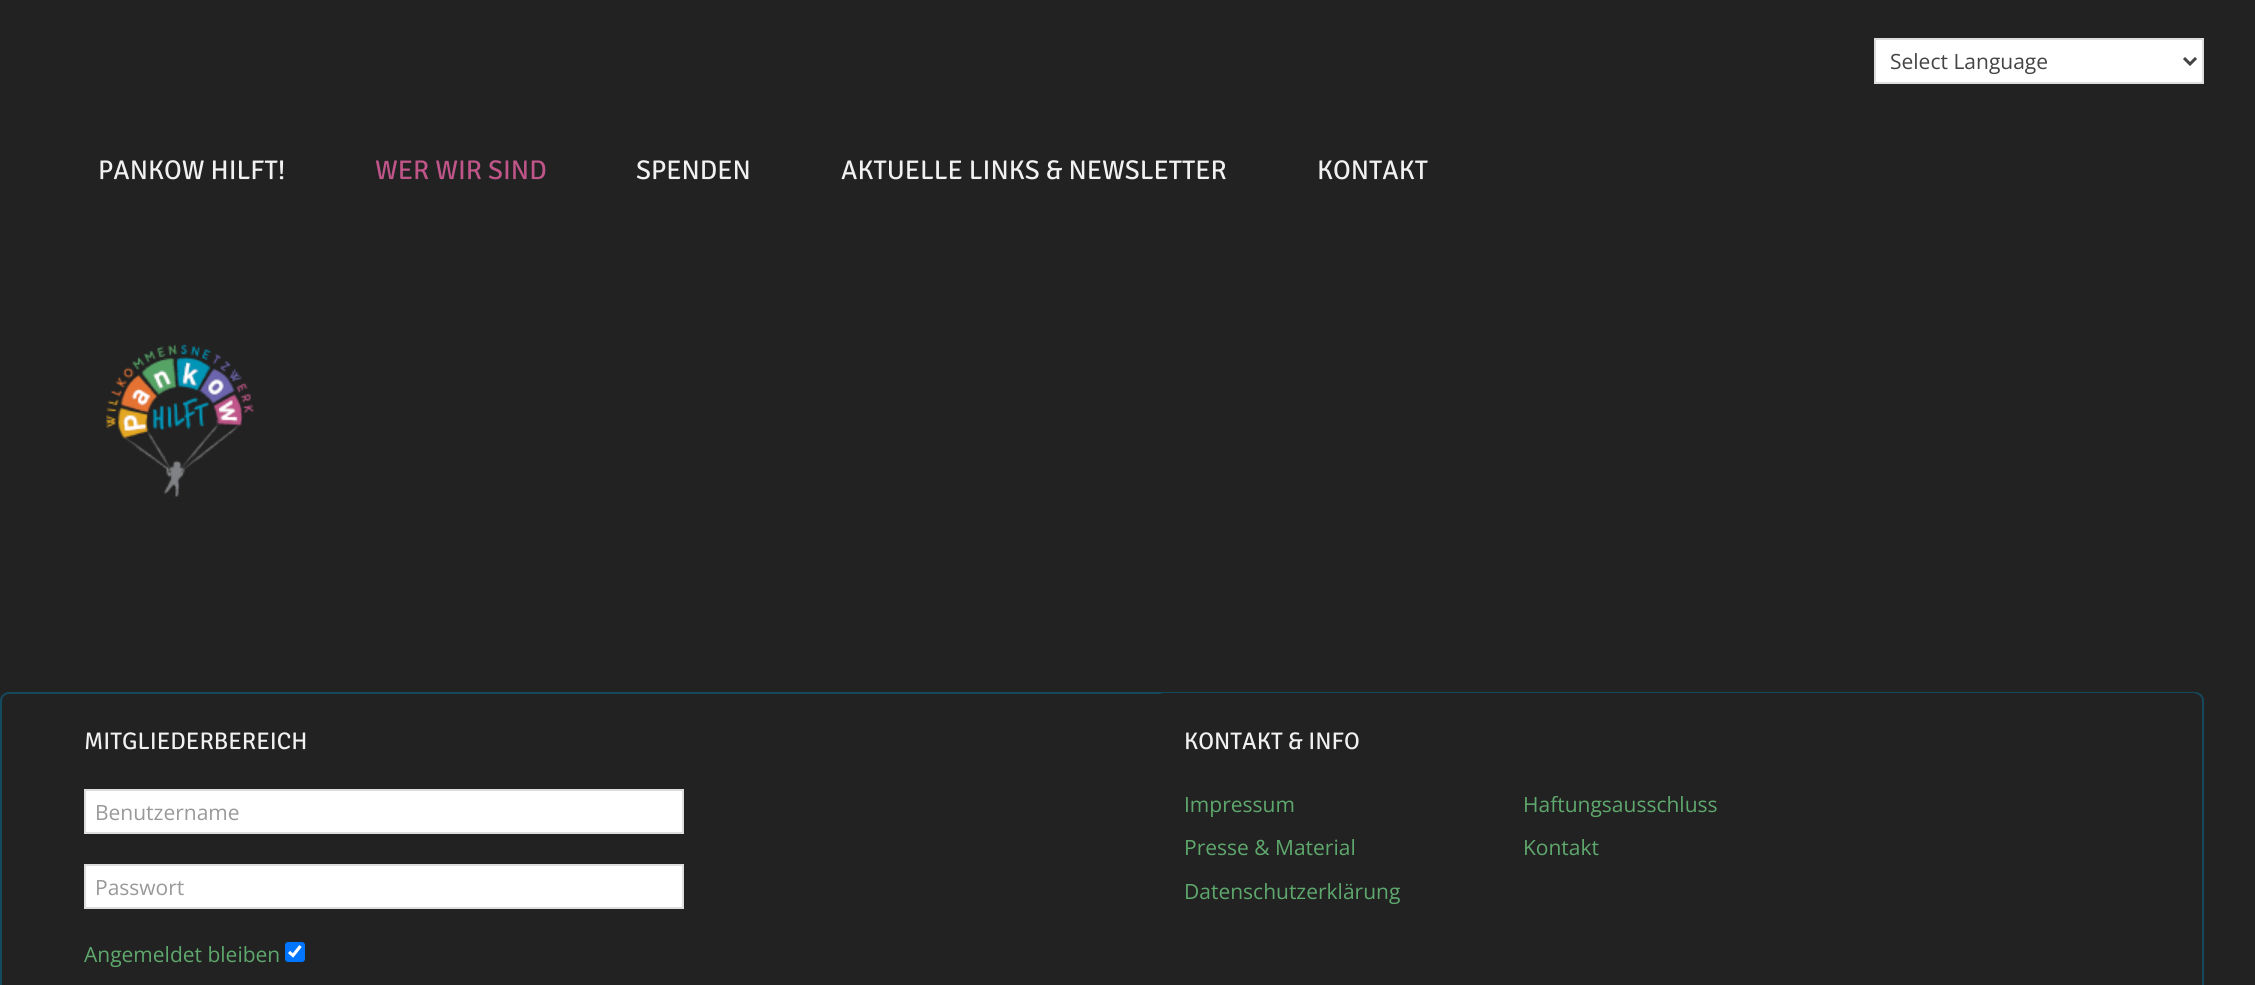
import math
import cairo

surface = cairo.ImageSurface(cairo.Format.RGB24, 2255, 985)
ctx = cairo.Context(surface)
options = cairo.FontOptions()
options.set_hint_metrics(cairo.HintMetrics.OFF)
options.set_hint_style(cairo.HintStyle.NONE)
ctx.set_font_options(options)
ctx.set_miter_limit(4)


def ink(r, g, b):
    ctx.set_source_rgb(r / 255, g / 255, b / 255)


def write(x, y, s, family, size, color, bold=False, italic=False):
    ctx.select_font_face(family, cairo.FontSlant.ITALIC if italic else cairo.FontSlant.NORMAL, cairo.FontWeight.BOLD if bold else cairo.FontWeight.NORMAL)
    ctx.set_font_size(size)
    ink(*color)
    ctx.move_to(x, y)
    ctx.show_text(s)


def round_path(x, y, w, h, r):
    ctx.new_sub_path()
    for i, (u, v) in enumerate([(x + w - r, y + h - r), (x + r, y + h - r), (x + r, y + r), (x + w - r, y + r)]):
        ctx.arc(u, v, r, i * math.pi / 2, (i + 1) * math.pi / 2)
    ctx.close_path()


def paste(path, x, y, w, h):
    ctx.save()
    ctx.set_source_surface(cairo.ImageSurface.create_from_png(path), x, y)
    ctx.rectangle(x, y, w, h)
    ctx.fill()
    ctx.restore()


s1 = dict(family="Open Sans", size=21, color=(68, 68, 68))
s2 = dict(family="Signika Negative Light", size=27, color=(241, 241, 241))
s3 = dict(family="Signika Negative Light", size=27, color=(191, 85, 136))
s4 = dict(family="Signika Negative Light", size=24, color=(241, 241, 241))
s5 = dict(family="Open Sans", size=21, color=(153, 153, 153))
s6 = dict(family="Open Sans", size=21, color=(94, 168, 109))

ink(34, 34, 34)
ctx.paint()
ink(255, 255, 255)
ctx.rectangle(1875, 39, 328, 44)
ctx.fill_preserve()
ink(221, 221, 221)
ctx.stroke()
ctx.new_path()
ctx.move_to(2184, 58)
ctx.line_to(2190, 64)
ctx.line_to(2196, 58)
ink(68, 68, 68)
ctx.set_line_width(3)
ctx.stroke()
write(1890, 69, "Select Language", **s1)
write(98, 179, "PANKOW HILFT!", **s2)
write(375, 179, "WER WIR SIND", **s3)
write(636, 179, "SPENDEN", **s2)
write(841, 179, "AKTUELLE LINKS & NEWSLETTER", **s2)
write(1317, 179, "KONTAKT", **s2)
paste("pic1.png", 106, 344, 148, 153)
round_path(1, 693, 2202, 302, 8)
ink(20, 74, 93)
ctx.set_line_width(2)
ctx.stroke()
write(84, 749, "MITGLIEDERBEREICH", **s4)
ink(255, 255, 255)
ctx.rectangle(85, 790, 598, 43)
ctx.fill_preserve()
ink(221, 221, 221)
ctx.stroke()
write(95, 820, "Benutzername", **s5)
ink(255, 255, 255)
ctx.rectangle(85, 865, 598, 43)
ctx.fill_preserve()
ink(221, 221, 221)
ctx.stroke()
write(95, 895, "Passwort", **s5)
write(84, 962, "Angemeldet bleiben", **s6)
ink(0, 117, 255)
round_path(285, 942, 20, 20, 3)
ctx.fill()
ctx.new_path()
ctx.move_to(289, 952)
ctx.line_to(293, 955.5)
ctx.line_to(300.5, 946)
ink(255, 255, 255)
ctx.set_line_width(3.1)
ctx.stroke()
ink(34, 34, 34)
round_path(1155, 693, 1047, 249, 9)
ctx.fill()
write(1184, 749, "KONTAKT & INFO", **s4)
write(1184, 812, "Impressum", **s6)
write(1523, 812, "Haftungsausschluss", **s6)
write(1184, 855, "Presse & Material", **s6)
write(1523, 855, "Kontakt", **s6)
write(1184, 899, "Datenschutzerklärung", **s6)
surface.write_to_png("screenshot.png")
